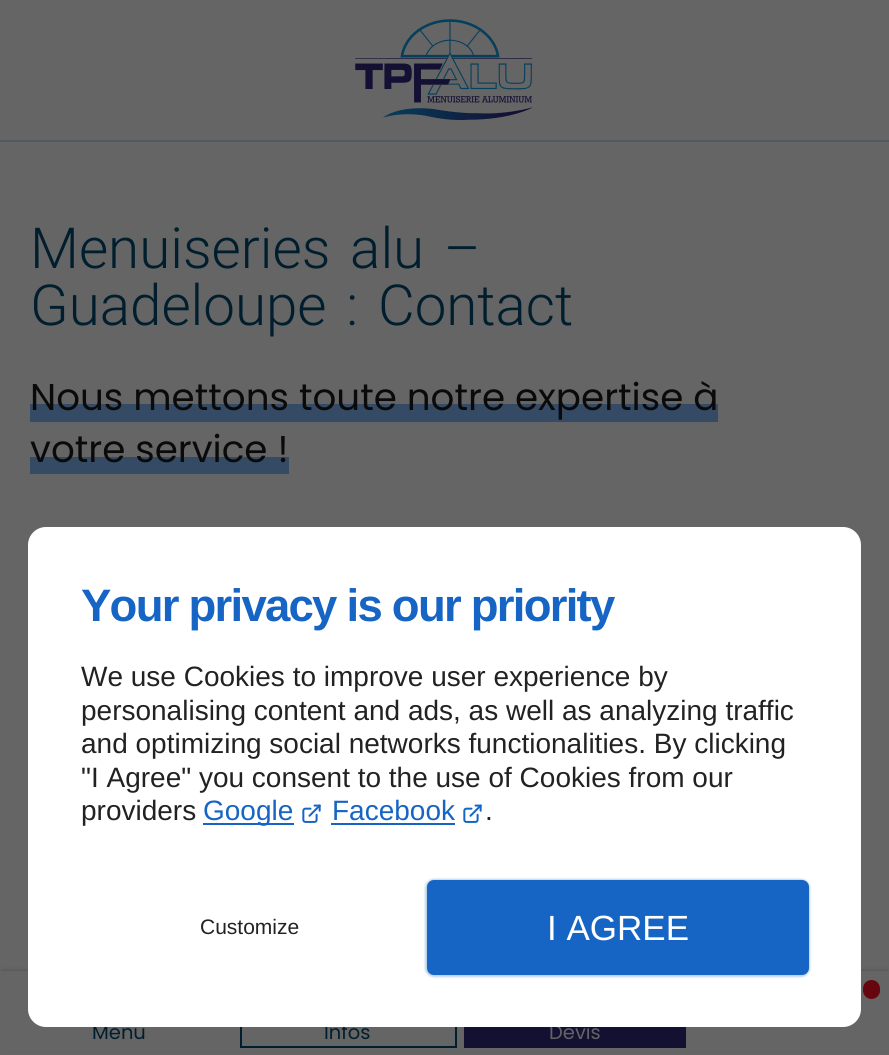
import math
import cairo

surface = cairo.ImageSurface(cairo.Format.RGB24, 889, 1055)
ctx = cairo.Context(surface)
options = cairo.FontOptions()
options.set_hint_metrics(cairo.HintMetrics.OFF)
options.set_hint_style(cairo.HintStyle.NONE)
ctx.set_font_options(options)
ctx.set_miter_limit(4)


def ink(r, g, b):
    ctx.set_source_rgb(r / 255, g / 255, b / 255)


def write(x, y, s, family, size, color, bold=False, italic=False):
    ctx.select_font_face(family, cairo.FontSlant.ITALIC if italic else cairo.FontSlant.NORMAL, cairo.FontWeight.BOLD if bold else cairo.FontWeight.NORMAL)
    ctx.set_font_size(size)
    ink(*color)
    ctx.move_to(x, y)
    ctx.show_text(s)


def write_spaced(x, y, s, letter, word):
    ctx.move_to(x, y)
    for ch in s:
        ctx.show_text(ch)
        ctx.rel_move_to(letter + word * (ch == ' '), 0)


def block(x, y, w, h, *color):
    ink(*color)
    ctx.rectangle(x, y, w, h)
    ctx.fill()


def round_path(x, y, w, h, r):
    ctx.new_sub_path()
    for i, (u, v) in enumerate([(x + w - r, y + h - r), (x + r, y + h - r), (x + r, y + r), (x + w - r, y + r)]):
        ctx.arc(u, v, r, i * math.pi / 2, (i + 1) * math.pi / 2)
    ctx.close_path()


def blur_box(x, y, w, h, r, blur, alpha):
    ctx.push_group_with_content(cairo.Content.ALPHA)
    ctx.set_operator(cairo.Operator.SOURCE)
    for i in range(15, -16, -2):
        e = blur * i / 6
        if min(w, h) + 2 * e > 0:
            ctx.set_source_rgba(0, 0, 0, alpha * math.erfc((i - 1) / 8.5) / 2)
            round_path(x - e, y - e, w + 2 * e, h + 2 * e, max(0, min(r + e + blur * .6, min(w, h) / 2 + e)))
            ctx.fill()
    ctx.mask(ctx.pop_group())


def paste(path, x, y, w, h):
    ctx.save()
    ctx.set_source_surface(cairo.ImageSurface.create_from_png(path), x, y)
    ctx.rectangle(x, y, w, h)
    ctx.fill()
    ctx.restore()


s1 = dict(family="Poppins", size=37.25, color=(10, 10, 10))
s2 = dict(family="Poppins", size=19.5, color=(0, 30, 45))
s3 = dict(family="Poppins", size=19.5, color=(99, 99, 101))
s4 = dict(family="Liberation Sans", size=28, color=(34, 34, 34))
s5 = dict(family="Liberation Sans", size=28, color=(22, 101, 196))
s6 = dict(family="Liberation Sans", size=21, color=(34, 34, 34))
s7 = dict(family="Liberation Sans", size=35, color=(255, 255, 255))

ink(101, 101, 101)
ctx.paint()
ctx.select_font_face("Roboto Light")
ctx.set_font_size(56.5)
ink(0, 30, 45)
write_spaced(30, 268, "Menuiseries alu –", 0, 6)
write_spaced(30, 325, "Guadeloupe : Contact", 0, 6)
block(30, 404, 688, 18, 52, 74, 101)
write(30, 410, "Nous mettons toute notre expertise à", **s1)
block(30, 457, 259, 17, 52, 74, 101)
write(30, 462, "votre service !", **s1)
ink(13, 20, 28)
blur_box(2, 970, 885, 80, 0, 2, 0.2)
block(0, 971, 889, 81, 101, 101, 101)
write(92, 1039, "Menu", **s2)
ctx.rectangle(241, 979, 215, 68)
ctx.stroke()
write(324, 1039, "Infos", **s2)
block(464, 1027, 222, 21, 19, 16, 50)
write(549, 1039, "Devis", **s3)
ink(255, 255, 255)
round_path(28, 527, 833, 500, 18)
ctx.fill()
ctx.select_font_face("Liberation Sans", cairo.FontSlant.NORMAL, cairo.FontWeight.BOLD)
ctx.set_font_size(45.5)
ink(22, 101, 196)
write_spaced(81, 621, "Your privacy is our priority", -1.75, 0)
write(81, 686, "We use Cookies to improve user experience by", **s4)
write(81, 720, "personalising content and ads, as well as analyzing traffic", **s4)
write(81, 753, "and optimizing social networks functionalities. By clicking", **s4)
write(81, 787, "\"I Agree\" you consent to the use of Cookies from our", **s4)
write(81, 820, "providers", **s4)
block(203, 823, 91, 2, 22, 101, 196)
write(203, 820, "Google", **s5)
paste("pic1.png", 302, 804, 19, 19)
write(332, 820, "Facebook", **s5)
block(331, 823, 124, 2, 22, 101, 196)
paste("pic1.png", 463, 804, 19, 19)
write(485, 820, ".", **s4)
write(200, 934, "Customize", **s6)
ink(22, 101, 196)
blur_box(425, 879, 385, 98, 9, 1, 0.3)
ink(22, 101, 196)
round_path(429, 882, 378, 91, 5)
ctx.fill_preserve()
ctx.set_line_width(4)
ctx.stroke()
write(547, 940, "I AGREE", **s7)
block(0, 140, 889, 2, 82, 89, 98)
paste("pic2.png", 355, 19, 178, 101)
ink(102, 7, 15)
round_path(863, 980, 17, 19, 8.5)
ctx.fill()
surface.write_to_png("screenshot.png")
